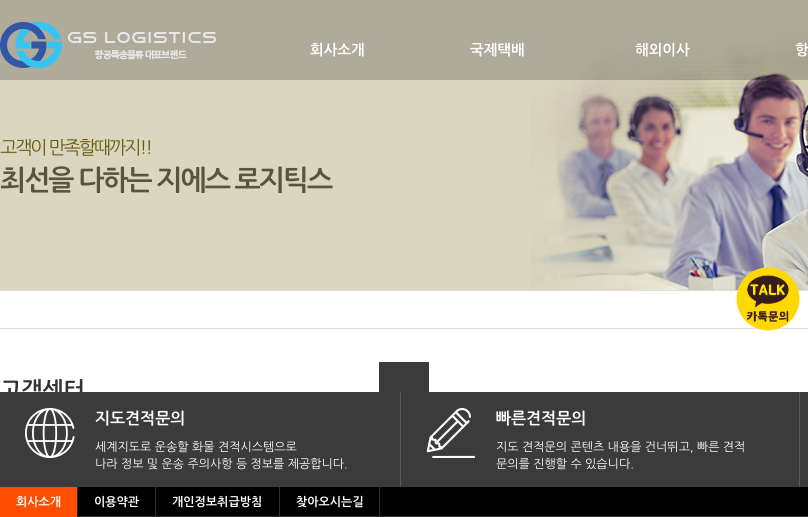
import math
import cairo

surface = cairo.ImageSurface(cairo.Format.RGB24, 808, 517)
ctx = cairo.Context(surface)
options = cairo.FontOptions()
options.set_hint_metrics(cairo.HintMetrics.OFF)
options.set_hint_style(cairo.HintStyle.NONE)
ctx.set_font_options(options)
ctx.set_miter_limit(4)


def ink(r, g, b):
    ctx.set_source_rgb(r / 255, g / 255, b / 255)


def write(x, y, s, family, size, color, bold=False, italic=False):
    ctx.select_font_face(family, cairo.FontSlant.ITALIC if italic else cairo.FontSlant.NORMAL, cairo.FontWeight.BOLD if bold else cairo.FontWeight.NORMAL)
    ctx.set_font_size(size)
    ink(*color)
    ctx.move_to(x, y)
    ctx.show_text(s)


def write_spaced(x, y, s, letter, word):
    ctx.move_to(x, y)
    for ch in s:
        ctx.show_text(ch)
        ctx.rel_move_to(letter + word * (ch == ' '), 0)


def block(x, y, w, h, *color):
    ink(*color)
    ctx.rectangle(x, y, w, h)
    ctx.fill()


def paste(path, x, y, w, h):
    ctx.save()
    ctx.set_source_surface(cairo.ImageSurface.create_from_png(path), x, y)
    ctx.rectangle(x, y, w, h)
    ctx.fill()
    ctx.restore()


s1 = dict(family="NanumGothic", size=14.5, color=(255, 255, 255), bold=True)
s2 = dict(family="NanumGothic", size=22.5, color=(51, 51, 51), bold=True)
s3 = dict(family="NanumGothic", size=16, color=(255, 255, 255), bold=True)
s4 = dict(family="NanumGothic", size=12, color=(255, 255, 255))
s5 = dict(family="NanumGothic", size=12, color=(255, 255, 255), bold=True)

ink(219, 214, 192)
ctx.paint()
paste("pic2.png", 530, 32, 278, 258)
ctx.set_source_rgba(0, 0, 0, 0.2)
ctx.rectangle(0, 0, 808, 80)
ctx.fill()
paste("pic1.png", 0, 22, 216, 46)
write(310, 55, "회사소개", **s1)
write(470, 55, "국제택배", **s1)
write(635, 55, "해외이사", **s1)
write(795, 55, "항", **s1)
ctx.select_font_face("NanumGothic")
ctx.set_font_size(18.25)
ink(105, 89, 16)
write_spaced(0, 154, "고객이 만족할때까지!!", -2, 0)
ctx.select_font_face("NanumGothic", cairo.FontSlant.NORMAL, cairo.FontWeight.BOLD)
ctx.set_font_size(27.8)
ink(89, 84, 61)
write_spaced(0, 190, "최선을 다하는 지에스 로지틱스", -2, 0)
block(0, 291, 808, 37, 255, 255, 255)
block(0, 290, 808, 1, 221, 221, 221)
block(0, 328, 808, 1, 221, 221, 221)
block(0, 329, 808, 63, 255, 255, 255)
paste("pic3.png", 736, 267, 64, 64)
write(0, 398, "고객센터", **s2)
block(379, 362, 50, 30, 59, 59, 59)
block(0, 392, 808, 95, 59, 59, 59)
paste("pic4.png", 25, 408, 50, 50)
write(95, 424, "지도견적문의", **s3)
write(95, 451, "세계지도로 운송할 화물 견적시스템으로", **s4)
write(95, 468, "나라 정보 및 운송 주의사항 등 정보를 제공합니다.", **s4)
block(799, 392, 1, 95, 96, 88, 88)
block(400, 392, 1, 95, 96, 88, 88)
paste("pic5.png", 426, 408, 49, 50)
write(496, 424, "빠른견적문의", **s3)
write(496, 451, "지도 견적문의 콘텐츠 내용을 건너뛰고, 빠른 견적", **s4)
write(496, 468, "문의를 진행할 수 있습니다.", **s4)
block(78, 487, 730, 29, 0, 0, 0)
block(78, 516, 730, 1, 47, 47, 47)
block(0, 487, 77, 30, 255, 78, 0)
block(77, 487, 1, 30, 47, 47, 47)
write(16, 506, "회사소개", **s5)
block(155, 487, 1, 30, 47, 47, 47)
write(94, 506, "이용약관", **s5)
block(279, 487, 1, 30, 47, 47, 47)
write(172, 506, "개인정보취급방침", **s5)
block(379, 487, 1, 30, 47, 47, 47)
write(296, 506, "찾아오시는길", **s5)
surface.write_to_png("screenshot.png")
